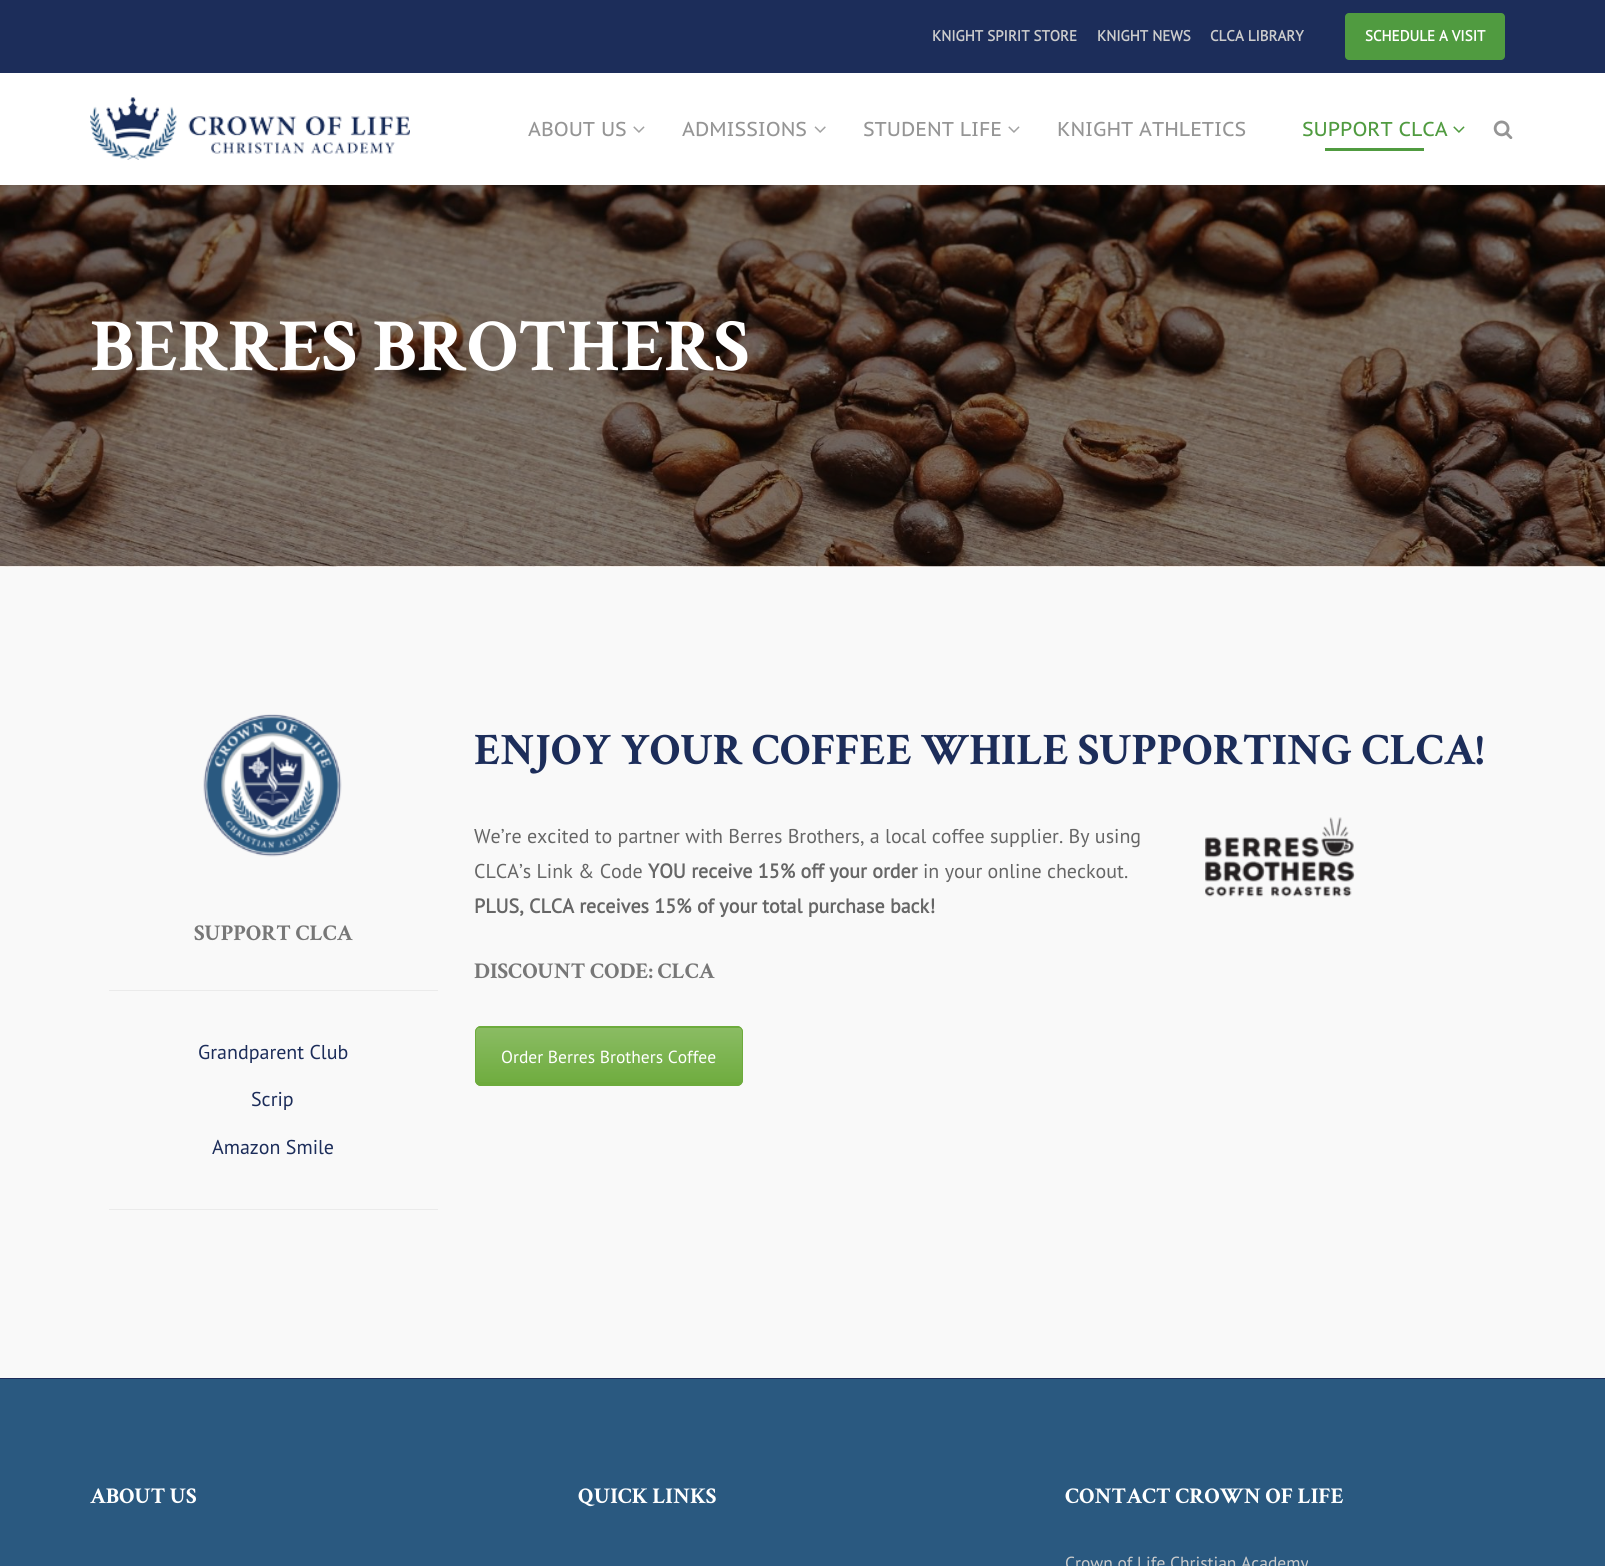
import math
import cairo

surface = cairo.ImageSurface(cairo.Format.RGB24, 1605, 1566)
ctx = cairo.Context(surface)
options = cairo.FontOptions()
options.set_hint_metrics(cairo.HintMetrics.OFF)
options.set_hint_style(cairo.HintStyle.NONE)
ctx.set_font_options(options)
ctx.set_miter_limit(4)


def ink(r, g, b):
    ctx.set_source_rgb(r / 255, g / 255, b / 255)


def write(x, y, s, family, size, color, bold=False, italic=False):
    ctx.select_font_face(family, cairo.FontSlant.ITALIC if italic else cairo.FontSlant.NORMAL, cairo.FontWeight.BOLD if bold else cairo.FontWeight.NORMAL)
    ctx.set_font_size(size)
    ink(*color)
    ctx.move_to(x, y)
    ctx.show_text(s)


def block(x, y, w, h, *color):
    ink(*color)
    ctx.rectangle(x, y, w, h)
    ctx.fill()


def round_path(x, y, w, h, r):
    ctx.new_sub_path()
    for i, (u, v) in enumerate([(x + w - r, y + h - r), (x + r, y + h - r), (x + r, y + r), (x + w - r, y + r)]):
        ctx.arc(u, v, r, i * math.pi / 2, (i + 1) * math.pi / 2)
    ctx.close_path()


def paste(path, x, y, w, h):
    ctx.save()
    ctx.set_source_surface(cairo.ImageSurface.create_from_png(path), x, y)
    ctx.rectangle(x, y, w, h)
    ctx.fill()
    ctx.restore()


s1 = dict(family="PT Sans", size=15, color=(204, 204, 204), bold=True)
s2 = dict(family="PT Sans", size=15, color=(255, 255, 255), bold=True)
s3 = dict(family="PT Sans Caption", size=20, color=(149, 149, 149))
s4 = dict(family="PT Sans Caption", size=20, color=(80, 155, 64))
s5 = dict(family="Crimson Text", size=75, color=(255, 255, 255), bold=True)
s6 = dict(family="Crimson Text", size=22.5, color=(119, 119, 119), bold=True)
s7 = dict(family="PT Sans", size=20, color=(28, 45, 90))
s8 = dict(family="Crimson Text", size=45, color=(28, 45, 90), bold=True)
s9 = dict(family="PT Sans", size=20, color=(102, 102, 102))
s10 = dict(family="PT Sans", size=20, color=(102, 102, 102), bold=True)
s11 = dict(family="PT Sans", size=17.5, color=(255, 255, 255))
s12 = dict(family="Crimson Text", size=22.5, color=(255, 255, 255), bold=True)
s13 = dict(family="PT Sans", size=17.5, color=(204, 204, 204))

ink(249, 249, 249)
ctx.paint()
block(0, 0, 1605, 73, 28, 45, 90)
write(932, 41, "KNIGHT SPIRIT STORE", **s1)
write(1097, 41, "KNIGHT NEWS", **s1)
write(1210, 41, "CLCA LIBRARY", **s1)
ink(80, 155, 64)
round_path(1345, 13, 160, 47, 4)
ctx.fill()
write(1365, 41, "SCHEDULE A VISIT", **s2)
block(0, 73, 1605, 112, 255, 255, 255)
paste("pic1.png", 90, 97, 320, 63)
write(528, 136, "ABOUT US", **s3)
paste("pic2.png", 633, 126, 12, 7)
write(682, 136, "ADMISSIONS", **s3)
paste("pic3.png", 814, 126, 12, 7)
write(863, 136, "STUDENT LIFE", **s3)
paste("pic2.png", 1008, 126, 12, 7)
write(1057, 136, "KNIGHT ATHLETICS", **s3)
write(1302, 136, "SUPPORT CLCA", **s4)
paste("pic4.png", 1453, 126, 12, 7)
block(1325, 148, 99, 3, 80, 155, 64)
paste("pic5.png", 1493, 120, 20, 19)
paste("pic6.png", 0, 185, 1605, 382)
write(90, 370, "BERRES BROTHERS", **s5)
paste("pic7.png", 203, 714, 139, 143)
write(194, 940, "SUPPORT CLCA", **s6)
block(109, 990, 329, 1, 235, 235, 235)
write(198, 1059, "Grandparent Club", **s7)
write(251, 1106, "Scrip", **s7)
write(212, 1154, "Amazon Smile", **s7)
block(109, 1209, 329, 1, 235, 235, 235)
write(474, 764, "ENJOY YOUR COFFEE WHILE SUPPORTING CLCA!", **s8)
write(474, 843, "We’re excited to partner with Berres Brothers, a local coffee supplier. By using", **s9)
write(474, 878, "CLCA’s Link & Code", **s9)
write(648, 878, "YOU receive 15% off your order", **s10)
write(923, 878, "in your online checkout.", **s9)
write(474, 913, "PLUS, CLCA receives 15% of your total purchase back!", **s10)
write(474, 978, "DISCOUNT CODE: CLCA", **s6)
paste("pic8.png", 1205, 817, 150, 80)
ink(109, 171, 60)
round_path(475, 1026, 268, 60, 6)
ctx.fill()
ctx.save()
round_path(475, 1026, 268, 60, 6)
ctx.clip()
gradient = cairo.LinearGradient(609, 1028, 609, 1085)
gradient.add_color_stop_rgba(0, 1, 1, 1, 0.2)
gradient.add_color_stop_rgba(1, 1, 1, 1, 0.01)
ctx.set_source(gradient)
ctx.rectangle(475, 1028, 268, 54)
ctx.fill()
ctx.restore()
round_path(475.5, 1026.5, 267, 59, 5.5)
ctx.set_line_width(1)
ctx.stroke()
write(501, 1063, "Order Berres Brothers Coffee", **s11)
block(0, 1379, 1605, 187, 42, 89, 128)
block(0, 1378, 1605, 1, 28, 45, 90)
write(90, 1503, "ABOUT US", **s12)
write(578, 1503, "QUICK LINKS", **s12)
write(1065, 1503, "CONTACT CROWN OF LIFE", **s12)
write(1065, 1569, "Crown of Life Christian Academy", **s13)
surface.write_to_png("screenshot.png")
